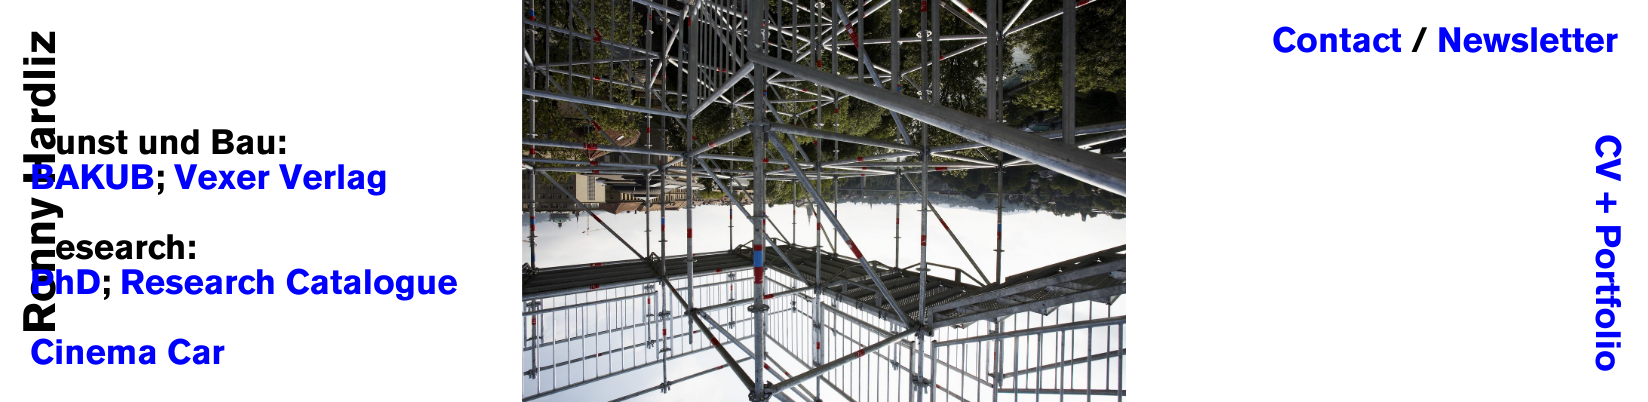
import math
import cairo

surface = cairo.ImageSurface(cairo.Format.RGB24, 1648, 402)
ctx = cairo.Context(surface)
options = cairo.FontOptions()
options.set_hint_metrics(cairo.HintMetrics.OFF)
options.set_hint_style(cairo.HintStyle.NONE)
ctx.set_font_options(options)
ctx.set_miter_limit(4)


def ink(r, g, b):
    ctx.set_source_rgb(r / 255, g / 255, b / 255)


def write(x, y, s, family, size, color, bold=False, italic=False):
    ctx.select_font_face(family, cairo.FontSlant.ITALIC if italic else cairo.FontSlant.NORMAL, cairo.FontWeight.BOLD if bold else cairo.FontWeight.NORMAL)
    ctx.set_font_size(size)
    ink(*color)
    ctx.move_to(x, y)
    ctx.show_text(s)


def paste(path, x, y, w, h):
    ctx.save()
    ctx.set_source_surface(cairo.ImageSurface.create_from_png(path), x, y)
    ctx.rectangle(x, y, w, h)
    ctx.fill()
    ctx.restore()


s1 = dict(family="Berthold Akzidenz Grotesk", size=45, color=(0, 0, 0), bold=True)
s2 = dict(family="Berthold Akzidenz Grotesk", size=35, color=(0, 0, 255), bold=True)
s3 = dict(family="Berthold Akzidenz Grotesk", size=35, color=(0, 0, 0), bold=True)

ink(255, 255, 255)
ctx.paint()
paste("pic1.png", 522, 0, 604, 402)
ctx.save()
ctx.translate(55, 334)
ctx.rotate(-90 * math.pi / 180)
write(0, 0, "Ronny Hardliz", **s1)
ctx.restore()
write(1272, 52, "Contact", **s2)
write(1411, 52, "/", **s3)
write(1437, 52, "Newsletter", **s2)
write(55, 154, "unst und Bau:", **s3)
write(30, 189, "BAKUB", **s2)
write(155, 189, ";", **s3)
write(174, 189, "Vexer Verlag", **s2)
write(55, 259, "esearch:", **s3)
write(30, 294, "PhD", **s2)
write(101, 294, ";", **s3)
write(120, 294, "Research Catalogue", **s2)
write(30, 364, "Cinema Car", **s2)
ctx.save()
ctx.translate(1596, 134)
ctx.rotate(90 * math.pi / 180)
write(0, 0, "CV + Portfolio", **s2)
ctx.restore()
surface.write_to_png("screenshot.png")
